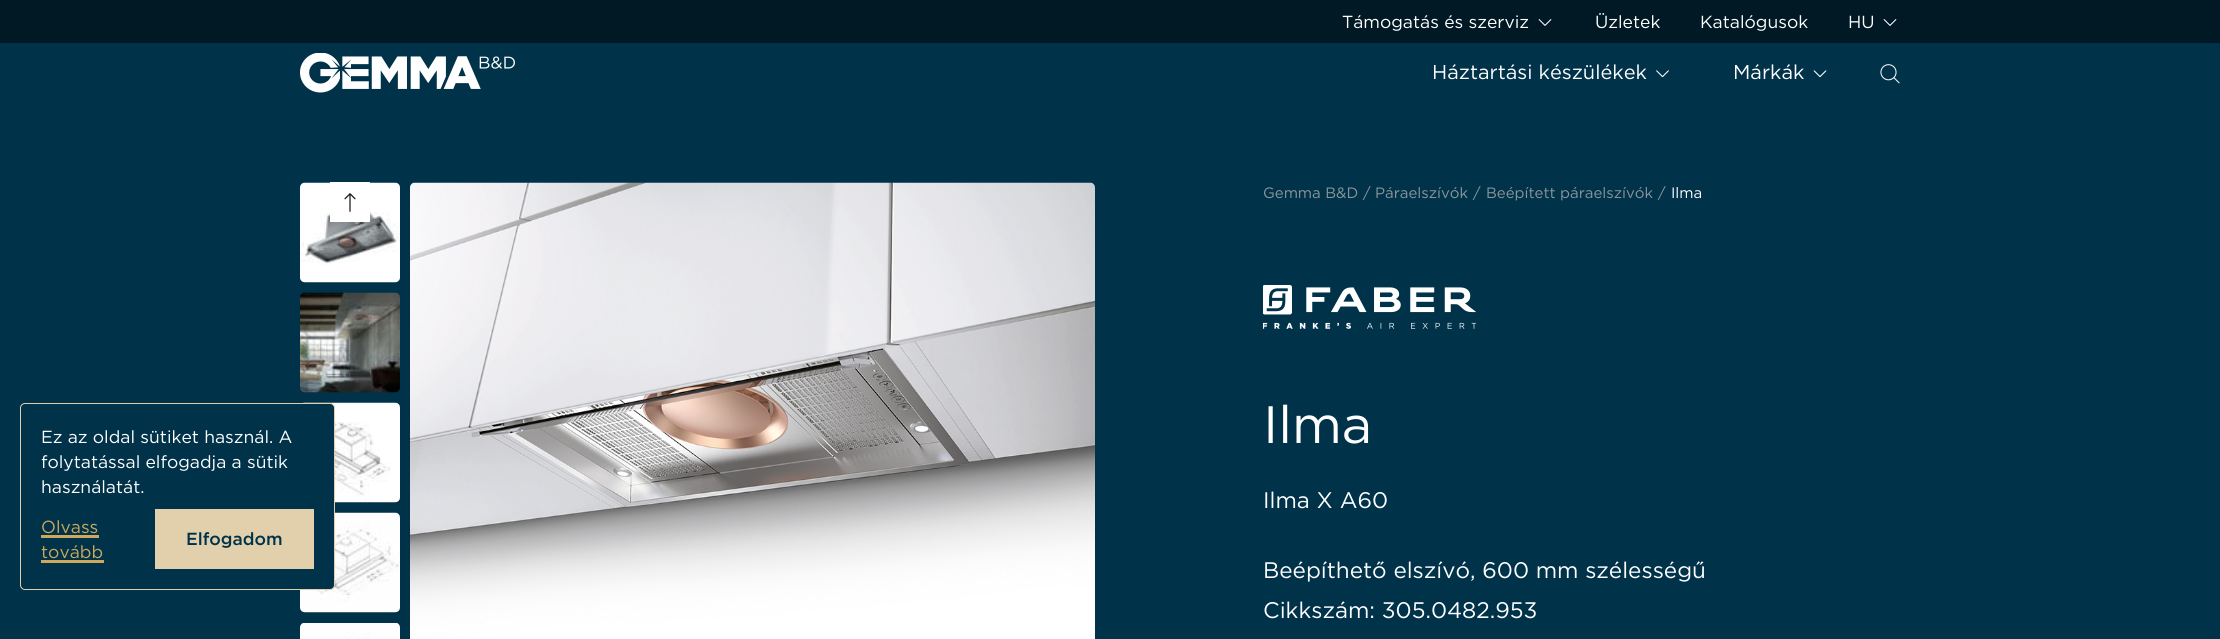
import math
import cairo

surface = cairo.ImageSurface(cairo.Format.RGB24, 2220, 639)
ctx = cairo.Context(surface)
options = cairo.FontOptions()
options.set_hint_metrics(cairo.HintMetrics.OFF)
options.set_hint_style(cairo.HintStyle.NONE)
ctx.set_font_options(options)
ctx.set_miter_limit(4)


def ink(r, g, b):
    ctx.set_source_rgb(r / 255, g / 255, b / 255)


def write(x, y, s, family, size, color, bold=False, italic=False):
    ctx.select_font_face(family, cairo.FontSlant.ITALIC if italic else cairo.FontSlant.NORMAL, cairo.FontWeight.BOLD if bold else cairo.FontWeight.NORMAL)
    ctx.set_font_size(size)
    ink(*color)
    ctx.move_to(x, y)
    ctx.show_text(s)


def block(x, y, w, h, *color):
    ink(*color)
    ctx.rectangle(x, y, w, h)
    ctx.fill()


def round_path(x, y, w, h, r):
    ctx.new_sub_path()
    for i, (u, v) in enumerate([(x + w - r, y + h - r), (x + r, y + h - r), (x + r, y + r), (x + w - r, y + r)]):
        ctx.arc(u, v, r, i * math.pi / 2, (i + 1) * math.pi / 2)
    ctx.close_path()


def paste(path, x, y, w, h):
    ctx.save()
    ctx.set_source_surface(cairo.ImageSurface.create_from_png(path), x, y)
    ctx.rectangle(x, y, w, h)
    ctx.fill()
    ctx.restore()


s1 = dict(family="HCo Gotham", size=17.5, color=(255, 255, 255))
s2 = dict(family="HCo Gotham", size=20, color=(255, 255, 255))
s3 = dict(family="HCo Gotham", size=17.5, color=(206, 168, 92))
s4 = dict(family="HCo Gotham Medium", size=17.5, color=(0, 50, 73))
s5 = dict(family="HCo Gotham", size=15, color=(140, 150, 155))
s6 = dict(family="HCo Gotham", size=15, color=(255, 255, 255))
s7 = dict(family="HCo Gotham", size=52.5, color=(255, 255, 255))
s8 = dict(family="HCo Gotham", size=22.5, color=(255, 255, 255))

ink(0, 50, 73)
ctx.paint()
paste("pic1.png", 300, 53, 215, 40)
block(0, 0, 2220, 43, 0, 25, 37)
write(1342, 28, "Támogatás és szerviz", **s1)
paste("pic2.png", 1538, 19, 14, 7)
write(1595, 28, "Üzletek", **s1)
write(1700, 28, "Katalógusok", **s1)
write(1848, 28, "HU", **s1)
paste("pic2.png", 1883, 19, 14, 7)
write(1432, 79, "Háztartási készülékek", **s2)
paste("pic3.png", 1656, 70, 13, 8)
write(1733, 79, "Márkák", **s2)
paste("pic4.png", 1813, 70, 14, 8)
paste("pic5.png", 1880, 64, 20, 20)
paste("pic8.png", 303, 402, 97, 101)
paste("pic9.png", 300, 512, 100, 101)
ink(0, 50, 73)
round_path(20.5, 403.5, 314, 186, 4.5)
ctx.fill_preserve()
ink(226, 208, 172)
ctx.set_line_width(1)
ctx.stroke()
write(41, 443, "Ez az oldal sütiket használ. A", **s1)
write(41, 468, "folytatással elfogadja a sütik", **s1)
write(41, 493, "használatát.", **s1)
write(41, 533, "Olvass", **s3)
block(41, 535, 58, 3, 206, 168, 92)
write(41, 558, "tovább", **s3)
block(41, 560, 63, 3, 206, 168, 92)
block(155, 509, 159, 60, 226, 208, 172)
write(186, 545, "Elfogadom", **s4)
paste("pic6.png", 300, 182, 100, 101)
paste("pic7.png", 300, 292, 100, 101)
paste("pic10.png", 300, 623, 100, 16)
block(330, 182, 40, 40, 255, 255, 255)
paste("pic11.png", 344, 193, 12, 19)
paste("pic12.png", 410, 182, 685, 457)
write(1263, 198, "Gemma B&D", **s5)
write(1363, 198, "/", **s5)
write(1375, 198, "Páraelszívók", **s5)
write(1473, 198, "/", **s5)
write(1486, 198, "Beépített páraelszívók", **s5)
write(1658, 198, "/", **s5)
write(1671, 198, "Ilma", **s6)
paste("pic13.png", 1263, 285, 213, 44)
write(1263, 443, "Ilma", **s7)
write(1263, 508, "Ilma X A60", **s8)
write(1263, 578, "Beépíthető elszívó, 600 mm szélességű", **s8)
write(1263, 618, "Cikkszám: 305.0482.953", **s8)
surface.write_to_png("screenshot.png")
